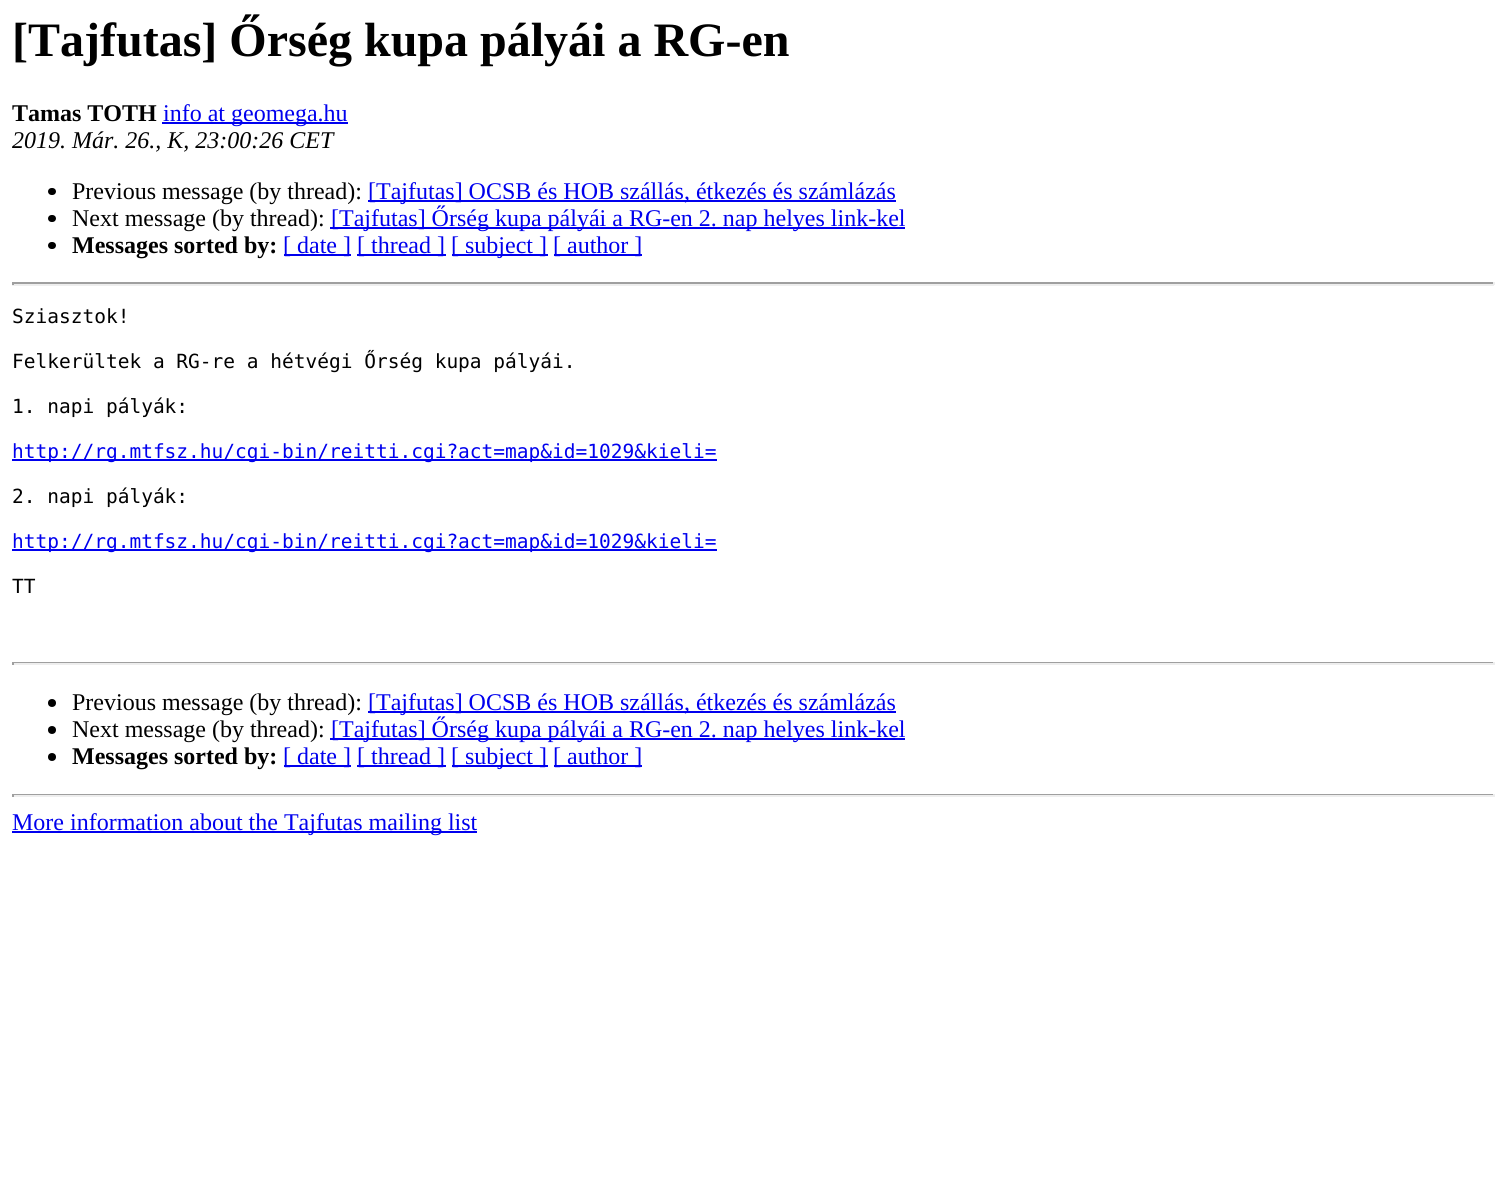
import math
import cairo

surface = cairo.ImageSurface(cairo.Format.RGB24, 1506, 1203)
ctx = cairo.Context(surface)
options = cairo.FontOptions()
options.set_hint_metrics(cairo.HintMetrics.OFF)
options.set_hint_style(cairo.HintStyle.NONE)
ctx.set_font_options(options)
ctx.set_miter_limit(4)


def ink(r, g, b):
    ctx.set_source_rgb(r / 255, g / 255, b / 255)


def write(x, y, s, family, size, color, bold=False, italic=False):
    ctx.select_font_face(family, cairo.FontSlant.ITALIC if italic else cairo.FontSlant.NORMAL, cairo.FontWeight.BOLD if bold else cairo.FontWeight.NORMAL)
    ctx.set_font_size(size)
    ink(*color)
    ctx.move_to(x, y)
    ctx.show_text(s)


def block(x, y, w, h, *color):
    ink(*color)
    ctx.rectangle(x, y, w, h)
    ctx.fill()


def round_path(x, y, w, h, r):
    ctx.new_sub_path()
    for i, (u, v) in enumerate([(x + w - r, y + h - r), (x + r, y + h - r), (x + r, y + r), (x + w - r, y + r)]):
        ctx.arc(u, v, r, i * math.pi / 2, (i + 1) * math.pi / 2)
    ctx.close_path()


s1 = dict(family="Liberation Serif", size=48, color=(0, 0, 0), bold=True)
s2 = dict(family="Liberation Serif", size=24, color=(0, 0, 0), bold=True)
s3 = dict(family="Liberation Serif", size=24, color=(0, 0, 238))
s4 = dict(family="Liberation Serif", size=24, color=(0, 0, 0), italic=True)
s5 = dict(family="Liberation Serif", size=24, color=(0, 0, 0))
s6 = dict(family="DejaVu Sans Mono", size=19.5, color=(0, 0, 0))
s7 = dict(family="DejaVu Sans Mono", size=19.5, color=(0, 0, 238))

ink(255, 255, 255)
ctx.paint()
write(12, 56, "[Tajfutas] Őrség kupa pályái a RG-en", **s1)
write(12, 121, "Tamas TOTH", **s2)
block(162, 122, 186, 2, 0, 0, 238)
write(163, 121, "info at geomega.hu", **s3)
write(12, 148, "2019. Már. 26., K, 23:00:26 CET", **s4)
round_path(48, 188, 8, 7, 3.5)
ctx.fill()
write(72, 199, "Previous message (by thread):", **s5)
block(368, 200, 528, 2, 0, 0, 238)
write(368, 199, "[Tajfutas] OCSB és HOB szállás, étkezés és számlázás", **s3)
ink(0, 0, 0)
round_path(48, 215, 8, 7, 3.5)
ctx.fill()
write(72, 226, "Next message (by thread):", **s5)
block(330, 227, 575, 2, 0, 0, 238)
write(331, 226, "[Tajfutas] Őrség kupa pályái a RG-en 2. nap helyes link-kel", **s3)
ink(0, 0, 0)
round_path(48, 242, 8, 7, 3.5)
ctx.fill()
write(72, 253, "Messages sorted by:", **s2)
block(284, 254, 67, 2, 0, 0, 238)
write(283, 253, "[ date ]", **s3)
block(357, 254, 89, 2, 0, 0, 238)
write(357, 253, "[ thread ]", **s3)
block(452, 254, 96, 2, 0, 0, 238)
write(451, 253, "[ subject ]", **s3)
block(554, 254, 88, 2, 0, 0, 238)
write(553, 253, "[ author ]", **s3)
block(12, 282, 1482, 2, 159, 159, 159)
block(1493, 282, 2, 3, 238, 238, 238)
block(12, 284, 1482, 2, 238, 238, 238)
block(12, 282, 2, 3, 159, 159, 159)
write(12, 323, "Sziasztok!", **s6)
write(12, 368, "Felkerültek a RG-re a hétvégi Őrség kupa pályái.", **s6)
write(12, 413, "1. napi pályák:", **s6)
block(12, 459, 705, 2, 0, 0, 238)
write(12, 458, "http://rg.mtfsz.hu/cgi-bin/reitti.cgi?act=map&id=1029&kieli=", **s7)
write(12, 503, "2. napi pályák:", **s6)
block(12, 549, 705, 2, 0, 0, 238)
write(12, 548, "http://rg.mtfsz.hu/cgi-bin/reitti.cgi?act=map&id=1029&kieli=", **s7)
write(12, 593, "TT", **s6)
block(12, 662, 1482, 1, 159, 159, 159)
block(1493, 662, 2, 3, 238, 238, 238)
block(12, 663, 1482, 2, 238, 238, 238)
block(12, 662, 2, 3, 159, 159, 159)
ink(0, 0, 0)
ctx.new_path()
ctx.arc(52, 703, 4, 0, 2 * math.pi)
ctx.fill()
write(72, 710, "Previous message (by thread):", **s5)
block(368, 711, 528, 2, 0, 0, 238)
write(368, 710, "[Tajfutas] OCSB és HOB szállás, étkezés és számlázás", **s3)
ink(0, 0, 0)
ctx.new_path()
ctx.arc(52, 730, 4, 0, 2 * math.pi)
ctx.fill()
write(72, 737, "Next message (by thread):", **s5)
block(330, 738, 575, 2, 0, 0, 238)
write(331, 737, "[Tajfutas] Őrség kupa pályái a RG-en 2. nap helyes link-kel", **s3)
ink(0, 0, 0)
ctx.new_path()
ctx.arc(52, 757, 4, 0, 2 * math.pi)
ctx.fill()
write(72, 764, "Messages sorted by:", **s2)
block(284, 765, 67, 2, 0, 0, 238)
write(283, 764, "[ date ]", **s3)
block(357, 765, 89, 2, 0, 0, 238)
write(357, 764, "[ thread ]", **s3)
block(452, 765, 96, 2, 0, 0, 238)
write(451, 764, "[ subject ]", **s3)
block(554, 765, 88, 2, 0, 0, 238)
write(553, 764, "[ author ]", **s3)
block(12, 794, 1482, 1, 159, 159, 159)
block(1493, 794, 2, 3, 238, 238, 238)
block(12, 795, 1482, 2, 238, 238, 238)
block(12, 794, 2, 3, 159, 159, 159)
block(12, 831, 465, 2, 0, 0, 238)
write(12, 830, "More information about the Tajfutas mailing list", **s3)
surface.write_to_png("screenshot.png")
